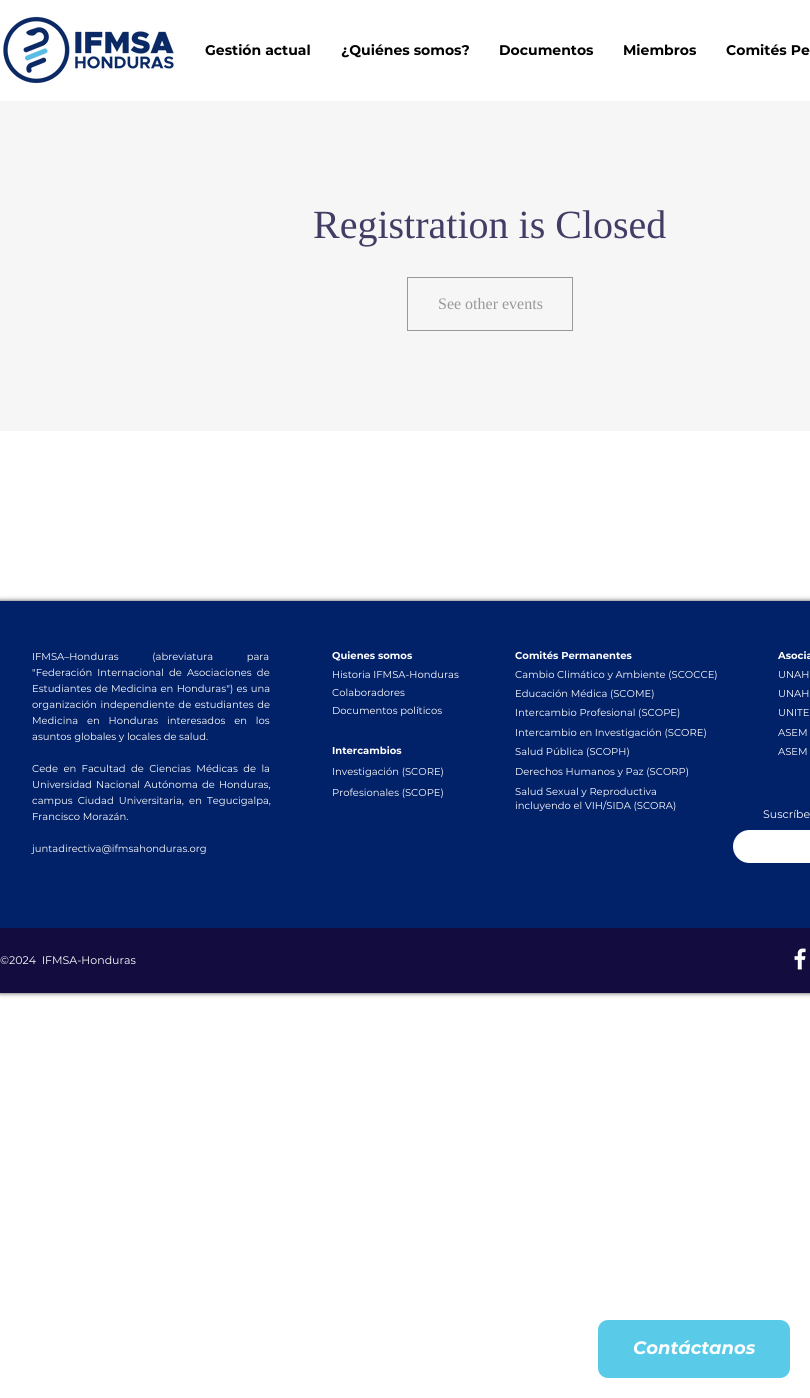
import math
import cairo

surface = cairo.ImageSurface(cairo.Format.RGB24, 810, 1398)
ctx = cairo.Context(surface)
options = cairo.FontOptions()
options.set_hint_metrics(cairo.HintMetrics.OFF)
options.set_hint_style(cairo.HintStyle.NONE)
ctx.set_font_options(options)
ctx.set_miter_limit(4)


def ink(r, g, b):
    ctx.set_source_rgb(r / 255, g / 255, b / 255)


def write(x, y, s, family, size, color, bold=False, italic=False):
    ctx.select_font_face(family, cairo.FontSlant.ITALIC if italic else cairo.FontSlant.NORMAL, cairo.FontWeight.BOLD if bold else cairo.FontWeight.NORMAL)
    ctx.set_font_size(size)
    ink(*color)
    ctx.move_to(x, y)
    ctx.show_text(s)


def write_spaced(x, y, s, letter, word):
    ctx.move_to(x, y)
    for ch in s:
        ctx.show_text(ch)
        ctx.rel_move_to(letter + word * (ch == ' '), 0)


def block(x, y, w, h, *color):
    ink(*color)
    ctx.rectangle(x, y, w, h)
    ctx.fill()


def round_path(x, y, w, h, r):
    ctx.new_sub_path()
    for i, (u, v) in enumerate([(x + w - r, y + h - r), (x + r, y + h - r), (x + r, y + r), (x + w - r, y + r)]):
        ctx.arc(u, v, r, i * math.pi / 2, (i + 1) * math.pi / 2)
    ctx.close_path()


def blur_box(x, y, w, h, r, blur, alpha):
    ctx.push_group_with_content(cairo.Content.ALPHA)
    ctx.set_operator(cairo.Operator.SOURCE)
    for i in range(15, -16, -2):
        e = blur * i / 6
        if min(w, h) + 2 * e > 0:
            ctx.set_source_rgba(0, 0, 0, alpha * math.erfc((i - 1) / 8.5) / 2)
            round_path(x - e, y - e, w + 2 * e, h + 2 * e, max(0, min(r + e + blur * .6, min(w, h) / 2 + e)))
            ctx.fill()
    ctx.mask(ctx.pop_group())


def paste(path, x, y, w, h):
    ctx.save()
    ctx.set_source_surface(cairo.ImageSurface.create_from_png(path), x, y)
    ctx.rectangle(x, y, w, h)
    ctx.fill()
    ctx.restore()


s1 = dict(family="Montserrat", size=14, color=(0, 0, 0), bold=True)
s2 = dict(family="Liberation Serif", size=40, color=(66, 61, 101))
s3 = dict(family="Liberation Serif", size=16, color=(153, 153, 153))
s4 = dict(family="Montserrat", size=10, color=(255, 255, 255))
s5 = dict(family="Montserrat", size=10, color=(255, 255, 255), bold=True)
s6 = dict(family="Montserrat", size=11, color=(255, 255, 255))
s7 = dict(family="Montserrat", size=18, color=(255, 255, 255), bold=True, italic=True)

ink(255, 255, 255)
ctx.paint()
paste("pic1.png", 3, 16, 171, 68)
write(205, 55, "Gestión actual", **s1)
write(341, 55, "¿Quiénes somos?", **s1)
write(499, 55, "Documentos", **s1)
write(623, 55, "Miembros", **s1)
write(726, 55, "Comités Pe", **s1)
block(0, 101, 810, 330, 246, 246, 246)
write(313, 238, "Registration is Closed", **s2)
ctx.rectangle(407.5, 277.5, 165, 53)
ink(153, 153, 153)
ctx.set_line_width(1)
ctx.stroke()
write(438, 309, "See other events", **s3)
ink(0, 0, 0)
blur_box(0, 601, 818, 392, 0, 2.5, 0.7)
block(0, 601, 810, 327, 1, 33, 105)
ctx.select_font_face("Montserrat")
ctx.set_font_size(10)
ink(255, 255, 255)
write_spaced(32, 660, "IFMSA–Honduras (abreviatura para", 0, 31)
write_spaced(32, 676, "\"Federación Internacional de Asociaciones de", 0, 2.5)
write_spaced(32, 692, "Estudiantes de Medicina en Honduras\") es una", 0, 0.75)
write_spaced(32, 708, "organización independiente de estudiantes de", 0, 1)
write_spaced(32, 724, "Medicina en Honduras interesados en los", 0, 6.25)
write(32, 740, "asuntos globales y locales de salud.", **s4)
write_spaced(32, 772, "Cede en Facultad de Ciencias Médicas de la", 0, 2.75)
write_spaced(32, 788, "Universidad Nacional Autónoma de Honduras,", 0, 1.5)
write_spaced(32, 804, "campus Ciudad Universitaria, en Tegucigalpa,", 0, 2.5)
write(32, 820, "Francisco Morazán.", **s4)
write(32, 852, "juntadirectiva@ifmsahonduras.org", **s4)
write(332, 659, "Quienes somos", **s5)
write(515, 659, "Comités Permanentes", **s5)
write(778, 659, "Asocia", **s5)
write(332, 678, "Historia IFMSA-Honduras", **s4)
write(515, 678, "Cambio Climático y Ambiente (SCOCCE)", **s4)
write(778, 678, "UNAH", **s4)
write(332, 696, "Colaboradores", **s4)
write(515, 697, "Educación Médica (SCOME)", **s4)
write(778, 697, "UNAH", **s4)
write(332, 714, "Documentos políticos", **s4)
write(515, 716, "Intercambio Profesional (SCOPE)", **s4)
write(778, 716, "UNITE", **s4)
write(515, 736, "Intercambio en Investigación (SCORE)", **s4)
write(778, 736, "ASEM", **s4)
write(332, 754, "Intercambios", **s5)
write(515, 755, "Salud Pública (SCOPH)", **s4)
write(778, 755, "ASEM", **s4)
write(332, 775, "Investigación (SCORE)", **s4)
write(515, 775, "Derechos Humanos y Paz (SCORP)", **s4)
write(332, 796, "Profesionales (SCOPE)", **s4)
write(515, 795, "Salud Sexual y Reproductiva", **s4)
write(515, 809, "incluyendo el VIH/SIDA (SCORA)", **s4)
write(763, 818, "Suscríbe", **s6)
round_path(733, 830, 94, 33, 16.5)
ctx.fill()
block(0, 928, 810, 65, 19, 13, 63)
write(0, 964, "©2024  IFMSA-Honduras", **s6)
paste("pic2.png", 794, 948, 12, 22)
ink(89, 203, 232)
round_path(598, 1320, 192, 58, 10)
ctx.fill()
write(633, 1354, "Contáctanos", **s7)
surface.write_to_png("screenshot.png")
